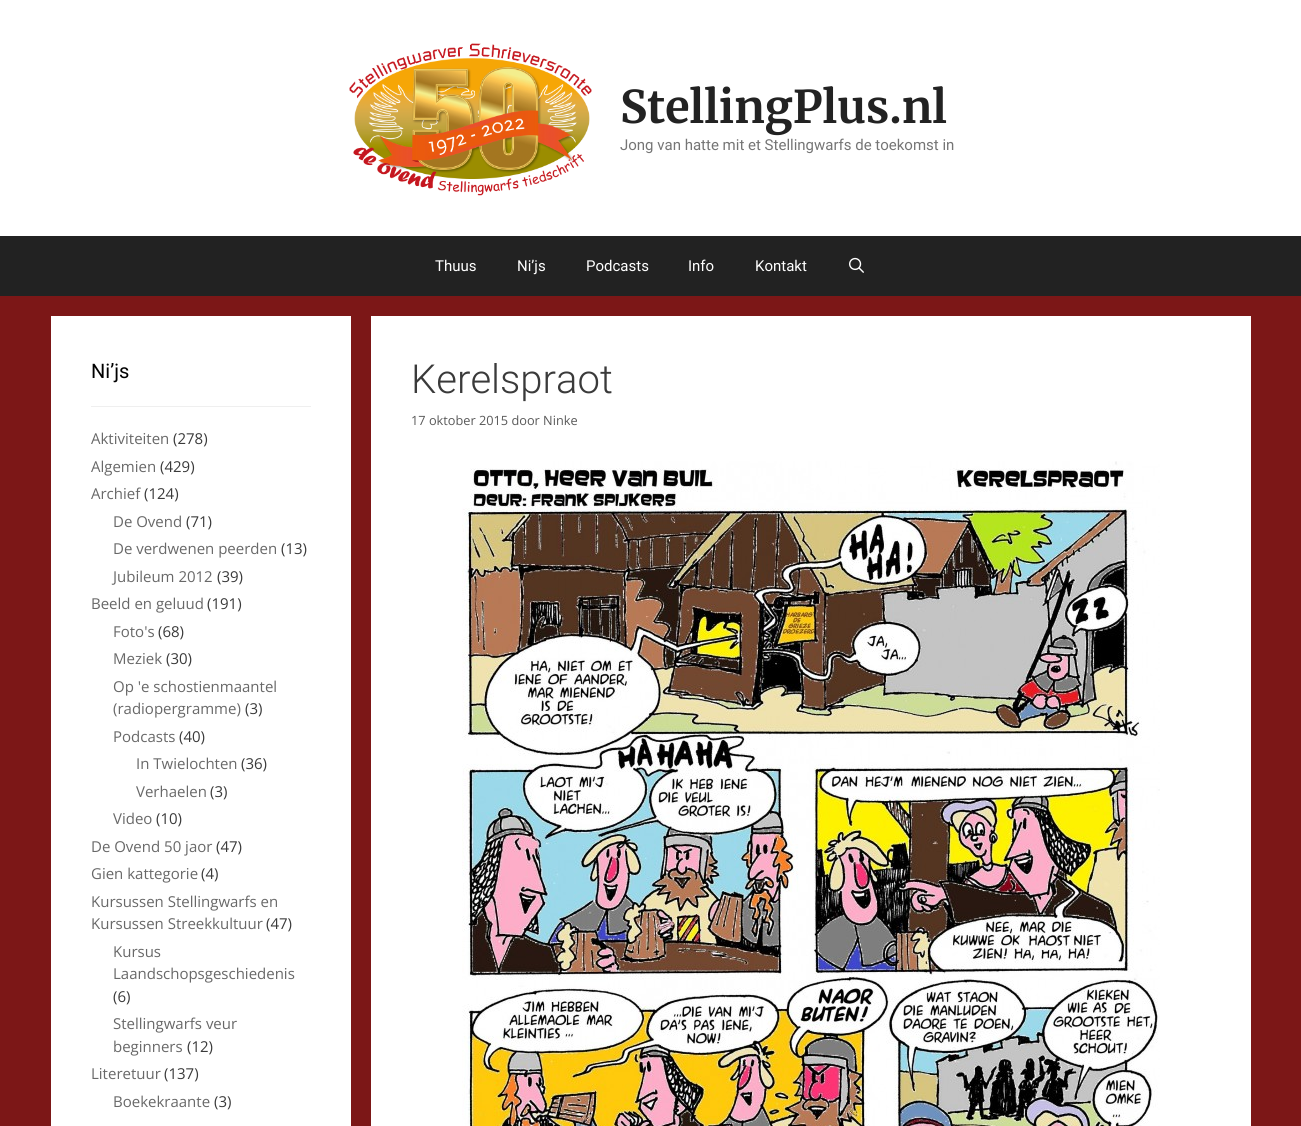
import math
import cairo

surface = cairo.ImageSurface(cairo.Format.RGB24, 1301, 1126)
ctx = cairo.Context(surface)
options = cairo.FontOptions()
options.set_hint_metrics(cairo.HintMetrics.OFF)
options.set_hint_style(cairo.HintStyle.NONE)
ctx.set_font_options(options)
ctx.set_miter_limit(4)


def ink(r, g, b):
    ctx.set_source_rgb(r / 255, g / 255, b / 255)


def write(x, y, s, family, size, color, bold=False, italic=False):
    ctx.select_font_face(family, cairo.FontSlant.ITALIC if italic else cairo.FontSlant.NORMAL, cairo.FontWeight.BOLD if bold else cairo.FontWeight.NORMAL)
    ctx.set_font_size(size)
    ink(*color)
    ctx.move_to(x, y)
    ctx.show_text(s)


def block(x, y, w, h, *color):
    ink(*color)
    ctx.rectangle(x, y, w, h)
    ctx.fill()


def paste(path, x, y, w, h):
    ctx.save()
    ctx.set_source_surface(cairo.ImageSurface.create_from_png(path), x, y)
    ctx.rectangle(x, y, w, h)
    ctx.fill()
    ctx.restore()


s1 = dict(family="Merriweather", size=45, color=(34, 34, 34), bold=True)
s2 = dict(family="Roboto", size=15, color=(117, 117, 117))
s3 = dict(family="Roboto", size=15, color=(255, 255, 255))
s4 = dict(family="Roboto", size=20, color=(0, 0, 0))
s5 = dict(family="Open Sans", size=15, color=(104, 104, 104))
s6 = dict(family="Open Sans", size=15, color=(58, 58, 58))
s7 = dict(family="Roboto Light", size=40, color=(58, 58, 58))
s8 = dict(family="Open Sans", size=12.75, color=(89, 89, 89))

ink(124, 23, 23)
ctx.paint()
block(0, 0, 1301, 236, 255, 255, 255)
paste("pic1.png", 349, 43, 243, 153)
write(620, 123, "StellingPlus.nl", **s1)
write(620, 150, "Jong van hatte mit et Stellingwarfs de toekomst in", **s2)
block(0, 236, 1301, 60, 34, 34, 34)
write(435, 271, "Thuus", **s3)
write(517, 271, "Ni’js", **s3)
write(586, 271, "Podcasts", **s3)
write(688, 271, "Info", **s3)
write(755, 271, "Kontakt", **s3)
paste("pic2.png", 849, 257, 15, 16)
block(51, 316, 300, 810, 255, 255, 255)
block(91, 406, 220, 1, 239, 239, 239)
write(91, 378, "Ni’js", **s4)
write(91, 444, "Aktiviteiten", **s5)
write(173, 444, "(278)", **s6)
write(91, 472, "Algemien", **s5)
write(160, 472, "(429)", **s6)
write(91, 499, "Archief", **s5)
write(144, 499, "(124)", **s6)
write(113, 527, "De Ovend", **s5)
write(186, 527, "(71)", **s6)
write(113, 554, "De verdwenen peerden", **s5)
write(281, 554, "(13)", **s6)
write(113, 582, "Jubileum 2012", **s5)
write(217, 582, "(39)", **s6)
write(91, 609, "Beeld en geluud", **s5)
write(207, 609, "(191)", **s6)
write(113, 637, "Foto's", **s5)
write(158, 637, "(68)", **s6)
write(113, 664, "Meziek", **s5)
write(166, 664, "(30)", **s6)
write(113, 692, "Op 'e schostienmaantel", **s5)
write(113, 714, "(radiopergramme)", **s5)
write(245, 714, "(3)", **s6)
write(113, 742, "Podcasts", **s5)
write(179, 742, "(40)", **s6)
write(136, 769, "In Twielochten", **s5)
write(241, 769, "(36)", **s6)
write(136, 797, "Verhaelen", **s5)
write(210, 797, "(3)", **s6)
write(113, 824, "Video", **s5)
write(156, 824, "(10)", **s6)
write(91, 852, "De Ovend 50 jaor", **s5)
write(216, 852, "(47)", **s6)
write(91, 879, "Gien kattegorie", **s5)
write(201, 879, "(4)", **s6)
write(91, 907, "Kursussen Stellingwarfs en", **s5)
write(91, 929, "Kursussen Streekkultuur", **s5)
write(266, 929, "(47)", **s6)
write(113, 957, "Kursus", **s5)
write(113, 979, "Laandschopsgeschiedenis", **s5)
write(113, 1002, "(6)", **s6)
write(113, 1029, "Stellingwarfs veur", **s5)
write(113, 1052, "beginners", **s5)
write(187, 1052, "(12)", **s6)
write(91, 1079, "Literetuur", **s5)
write(164, 1079, "(137)", **s6)
write(113, 1107, "Boekekraante", **s5)
write(214, 1107, "(3)", **s6)
block(371, 316, 880, 810, 255, 255, 255)
write(411, 393, "Kerelspraot", **s7)
write(411, 425, "17 oktober 2015 door Ninke", **s8)
paste("pic3.png", 462, 461, 698, 665)
surface.write_to_png("screenshot.png")
